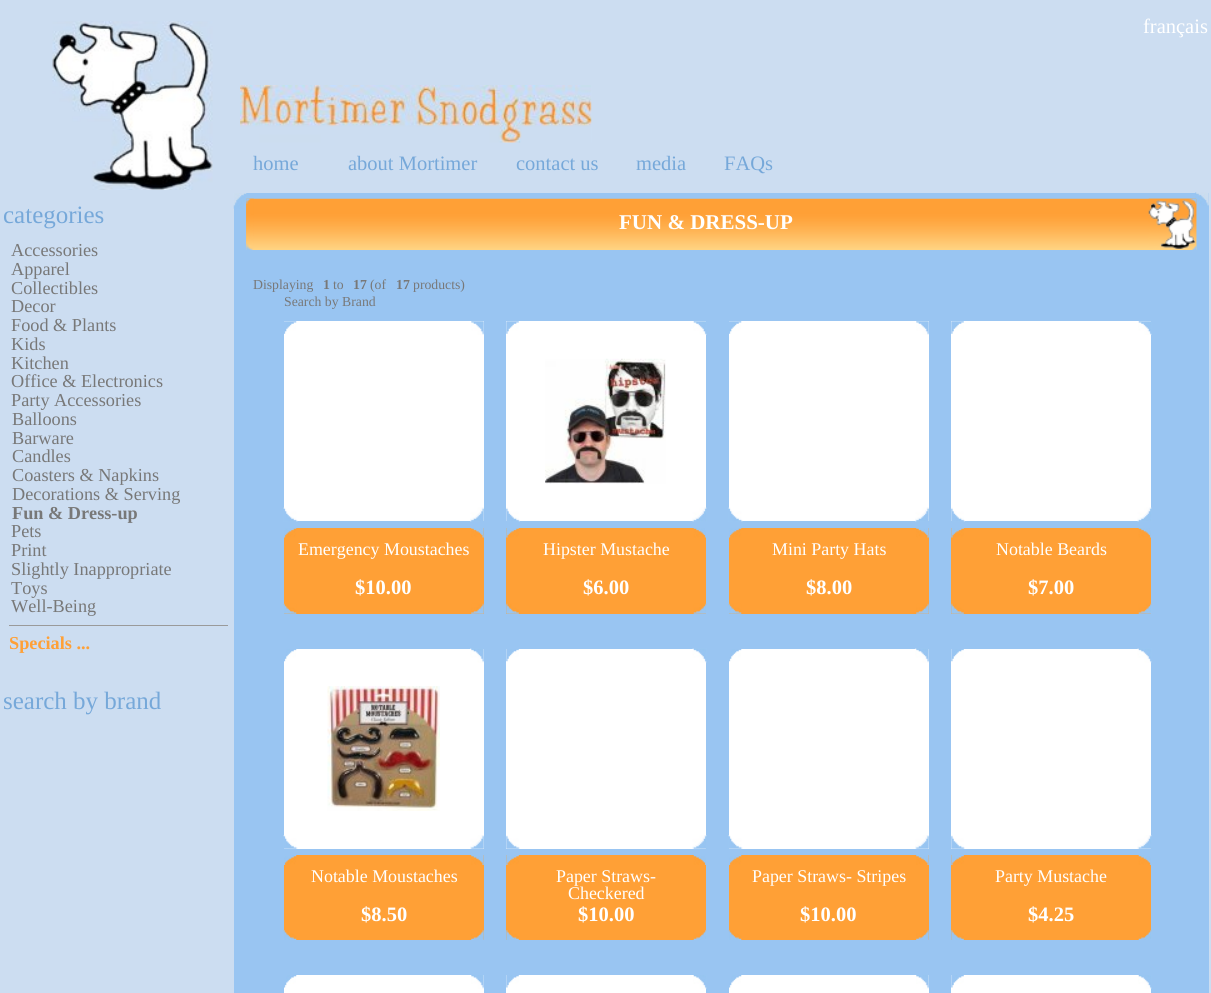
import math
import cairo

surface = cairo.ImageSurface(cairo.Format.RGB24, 1211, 993)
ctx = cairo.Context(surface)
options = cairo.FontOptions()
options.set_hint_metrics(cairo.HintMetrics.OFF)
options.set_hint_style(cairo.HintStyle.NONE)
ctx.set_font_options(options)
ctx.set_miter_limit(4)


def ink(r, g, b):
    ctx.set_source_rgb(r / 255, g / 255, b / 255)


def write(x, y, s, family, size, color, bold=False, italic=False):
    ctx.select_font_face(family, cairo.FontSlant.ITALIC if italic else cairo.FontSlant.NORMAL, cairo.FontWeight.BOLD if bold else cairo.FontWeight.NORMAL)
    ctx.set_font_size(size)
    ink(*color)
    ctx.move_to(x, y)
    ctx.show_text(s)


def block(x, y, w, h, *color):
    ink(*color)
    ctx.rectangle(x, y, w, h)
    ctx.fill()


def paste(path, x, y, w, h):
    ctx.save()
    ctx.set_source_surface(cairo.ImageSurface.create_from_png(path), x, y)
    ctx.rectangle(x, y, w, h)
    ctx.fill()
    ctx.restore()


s1 = dict(family="Liberation Serif", size=20.5, color=(255, 255, 255))
s2 = dict(family="Liberation Serif", size=20.5, color=(118, 168, 217))
s3 = dict(family="Liberation Serif", size=25, color=(118, 168, 217))
s4 = dict(family="Liberation Serif", size=18.25, color=(120, 120, 120))
s5 = dict(family="Liberation Serif", size=18.25, color=(120, 120, 120), bold=True)
s6 = dict(family="Liberation Serif", size=18.25, color=(255, 160, 54), bold=True)
s7 = dict(family="Liberation Serif", size=21, color=(255, 255, 255), bold=True)
s8 = dict(family="Liberation Serif", size=13.75, color=(120, 120, 120))
s9 = dict(family="Liberation Serif", size=13.75, color=(120, 120, 120), bold=True)
s10 = dict(family="Liberation Serif", size=17.9, color=(255, 255, 255))
s11 = dict(family="Liberation Serif", size=20.5, color=(255, 255, 255), bold=True)

ink(204, 221, 241)
ctx.paint()
paste("pic1.png", 52, 21, 161, 169)
write(1143, 33, "français", **s1)
paste("pic2.png", 240, 85, 352, 58)
write(253, 170, "home", **s2)
write(348, 170, "about Mortimer", **s2)
write(516, 170, "contact us", **s2)
write(636, 170, "media", **s2)
write(724, 170, "FAQs", **s2)
write(3, 223, "categories", **s3)
write(11, 256, "Accessories", **s4)
write(11, 275, "Apparel", **s4)
write(11, 294, "Collectibles", **s4)
write(11, 312, "Decor", **s4)
write(11, 331, "Food & Plants", **s4)
write(11, 350, "Kids", **s4)
write(11, 369, "Kitchen", **s4)
write(11, 387, "Office & Electronics", **s4)
write(11, 406, "Party Accessories", **s4)
write(12, 425, "Balloons", **s4)
write(12, 444, "Barware", **s4)
write(12, 462, "Candles", **s4)
write(12, 481, "Coasters & Napkins", **s4)
write(12, 500, "Decorations & Serving", **s4)
write(12, 519, "Fun & Dress-up", **s5)
write(11, 537, "Pets", **s4)
write(11, 556, "Print", **s4)
write(11, 575, "Slightly Inappropriate", **s4)
write(11, 594, "Toys", **s4)
write(11, 612, "Well-Being", **s4)
block(9, 625, 219, 1, 154, 154, 154)
write(9, 649, "Specials ...", **s6)
write(3, 709, "search by brand", **s3)
block(234, 193, 975, 800, 153, 197, 242)
paste("pic3.png", 233, 193, 14, 16)
paste("pic4.png", 1195, 192, 14, 14)
paste("pic5.png", 246, 198, 951, 52)
paste("pic6.png", 246, 198, 8, 52)
paste("pic7.png", 1148, 198, 49, 52)
write(619, 229, "FUN & DRESS-UP", **s7)
write(253, 289, "Displaying", **s8)
write(323, 289, "1", **s9)
write(333, 289, "to", **s8)
write(353, 289, "17", **s9)
write(370, 289, "(of", **s8)
write(396, 289, "17", **s9)
write(413, 289, "products)", **s8)
write(284, 306, "Search by Brand", **s8)
block(284, 321, 200, 200, 255, 255, 255)
paste("pic8.png", 284, 321, 13, 13)
paste("pic9.png", 471, 321, 13, 14)
paste("pic10.png", 283, 507, 15, 15)
paste("pic11.png", 470, 507, 14, 15)
block(284, 528, 200, 86, 255, 160, 54)
paste("pic12.png", 284, 528, 13, 10)
paste("pic13.png", 471, 528, 13, 10)
paste("pic14.png", 283, 603, 14, 11)
paste("pic15.png", 471, 603, 13, 11)
write(298, 555, "Emergency Moustaches", **s10)
write(355, 594, "$10.00", **s11)
block(506, 321, 200, 200, 255, 255, 255)
paste("pic16.png", 506, 321, 13, 13)
paste("pic17.png", 693, 321, 14, 14)
paste("pic18.png", 506, 507, 14, 15)
paste("pic19.png", 692, 507, 15, 15)
paste("pic20.png", 545, 358, 121, 126)
block(506, 528, 200, 86, 255, 160, 54)
paste("pic21.png", 506, 528, 13, 10)
paste("pic22.png", 693, 528, 13, 10)
paste("pic23.png", 506, 603, 13, 11)
paste("pic24.png", 693, 603, 14, 11)
write(543, 555, "Hipster Mustache", **s10)
write(583, 594, "$6.00", **s11)
block(729, 321, 200, 200, 255, 255, 255)
paste("pic8.png", 729, 321, 13, 13)
paste("pic25.png", 916, 321, 13, 14)
paste("pic10.png", 728, 507, 15, 15)
paste("pic26.png", 915, 507, 14, 15)
block(729, 528, 200, 86, 255, 160, 54)
paste("pic12.png", 729, 528, 13, 10)
paste("pic13.png", 916, 528, 13, 10)
paste("pic14.png", 728, 603, 14, 11)
paste("pic15.png", 916, 603, 13, 11)
write(772, 555, "Mini Party Hats", **s10)
write(806, 594, "$8.00", **s11)
block(951, 321, 200, 200, 255, 255, 255)
paste("pic16.png", 951, 321, 13, 13)
paste("pic27.png", 1138, 321, 14, 14)
paste("pic18.png", 951, 507, 14, 15)
paste("pic28.png", 1137, 507, 15, 15)
block(951, 528, 200, 86, 255, 160, 54)
paste("pic21.png", 951, 528, 13, 10)
paste("pic22.png", 1138, 528, 13, 10)
paste("pic23.png", 951, 603, 13, 11)
paste("pic24.png", 1138, 603, 14, 11)
write(996, 555, "Notable Beards", **s10)
write(1028, 594, "$7.00", **s11)
block(284, 649, 200, 200, 255, 255, 255)
paste("pic29.png", 284, 649, 13, 13)
paste("pic30.png", 470, 648, 14, 15)
paste("pic31.png", 283, 835, 15, 14)
paste("pic32.png", 470, 835, 14, 14)
paste("pic33.png", 327, 686, 113, 125)
block(284, 855, 200, 85, 255, 160, 54)
paste("pic34.png", 284, 855, 13, 10)
paste("pic35.png", 471, 855, 13, 10)
paste("pic36.png", 283, 930, 14, 10)
paste("pic37.png", 471, 930, 13, 10)
write(311, 882, "Notable Moustaches", **s10)
write(361, 921, "$8.50", **s11)
block(506, 649, 200, 200, 255, 255, 255)
paste("pic38.png", 506, 649, 13, 13)
paste("pic39.png", 692, 648, 15, 15)
paste("pic40.png", 506, 835, 14, 14)
paste("pic41.png", 692, 835, 15, 14)
block(506, 855, 200, 85, 255, 160, 54)
paste("pic42.png", 506, 855, 13, 10)
paste("pic43.png", 693, 855, 13, 10)
paste("pic44.png", 506, 930, 13, 10)
paste("pic45.png", 693, 930, 14, 10)
write(556, 882, "Paper Straws-", **s10)
write(568, 899, "Checkered", **s10)
write(578, 921, "$10.00", **s11)
block(729, 649, 200, 200, 255, 255, 255)
paste("pic29.png", 729, 649, 13, 13)
paste("pic46.png", 915, 648, 14, 15)
paste("pic31.png", 728, 835, 15, 14)
paste("pic47.png", 915, 835, 14, 14)
block(729, 855, 200, 85, 255, 160, 54)
paste("pic34.png", 729, 855, 13, 10)
paste("pic35.png", 916, 855, 13, 10)
paste("pic36.png", 728, 930, 14, 10)
paste("pic37.png", 916, 930, 13, 10)
write(752, 882, "Paper Straws- Stripes", **s10)
write(800, 921, "$10.00", **s11)
block(951, 649, 200, 200, 255, 255, 255)
paste("pic38.png", 951, 649, 13, 13)
paste("pic48.png", 1137, 648, 15, 15)
paste("pic40.png", 951, 835, 14, 14)
paste("pic49.png", 1137, 835, 15, 14)
block(951, 855, 200, 85, 255, 160, 54)
paste("pic42.png", 951, 855, 13, 10)
paste("pic43.png", 1138, 855, 13, 10)
paste("pic44.png", 951, 930, 13, 10)
paste("pic45.png", 1138, 930, 14, 10)
write(995, 882, "Party Mustache", **s10)
write(1028, 921, "$4.25", **s11)
block(284, 975, 200, 18, 255, 255, 255)
paste("pic50.png", 284, 975, 13, 13)
paste("pic51.png", 471, 975, 13, 14)
block(506, 975, 200, 18, 255, 255, 255)
paste("pic52.png", 506, 975, 13, 13)
paste("pic53.png", 693, 975, 14, 14)
block(729, 975, 200, 18, 255, 255, 255)
paste("pic50.png", 729, 975, 13, 13)
paste("pic54.png", 916, 975, 13, 14)
block(951, 975, 200, 18, 255, 255, 255)
paste("pic52.png", 951, 975, 13, 13)
paste("pic55.png", 1138, 975, 14, 14)
surface.write_to_png("screenshot.png")
